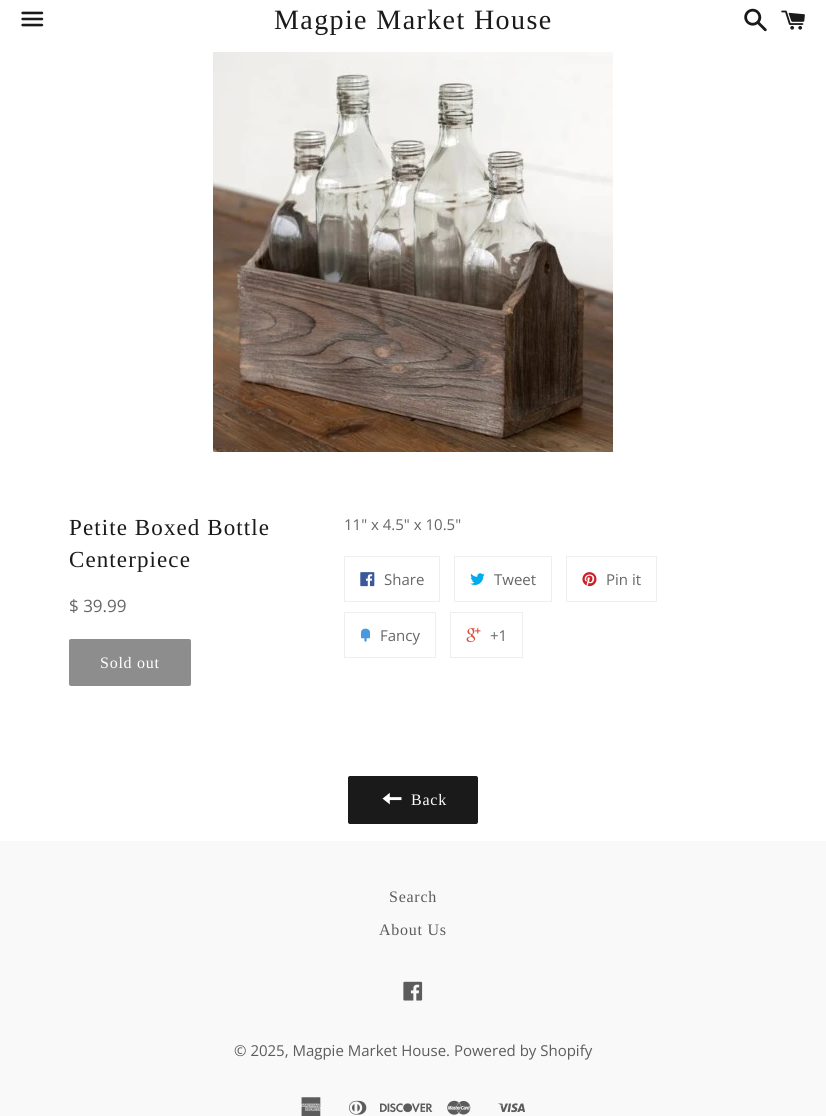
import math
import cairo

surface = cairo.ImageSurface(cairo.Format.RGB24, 826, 1116)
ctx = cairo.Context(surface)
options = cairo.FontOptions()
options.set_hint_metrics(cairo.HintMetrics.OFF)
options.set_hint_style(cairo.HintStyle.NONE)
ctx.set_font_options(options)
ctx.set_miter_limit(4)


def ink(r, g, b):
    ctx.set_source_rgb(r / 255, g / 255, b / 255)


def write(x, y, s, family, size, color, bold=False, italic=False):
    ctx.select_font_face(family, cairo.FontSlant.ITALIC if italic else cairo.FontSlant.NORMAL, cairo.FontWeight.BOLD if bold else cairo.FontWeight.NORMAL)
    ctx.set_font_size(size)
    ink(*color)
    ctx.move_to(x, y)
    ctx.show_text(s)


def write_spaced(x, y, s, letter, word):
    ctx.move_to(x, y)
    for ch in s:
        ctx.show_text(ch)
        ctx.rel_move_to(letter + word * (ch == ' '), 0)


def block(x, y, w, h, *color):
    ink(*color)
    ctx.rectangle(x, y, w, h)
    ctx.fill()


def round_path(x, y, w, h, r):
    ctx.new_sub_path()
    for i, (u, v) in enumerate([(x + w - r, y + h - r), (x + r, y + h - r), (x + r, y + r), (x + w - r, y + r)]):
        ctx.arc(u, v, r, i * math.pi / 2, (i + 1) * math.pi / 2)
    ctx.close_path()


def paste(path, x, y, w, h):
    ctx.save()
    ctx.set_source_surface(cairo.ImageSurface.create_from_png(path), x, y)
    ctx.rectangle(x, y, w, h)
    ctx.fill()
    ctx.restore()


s1 = dict(family="Open Sans", size=17, color=(102, 102, 102))
s2 = dict(family="Open Sans", size=15, color=(102, 102, 102))
s3 = dict(family="Open Sans", size=15, color=(92, 92, 92))

ink(255, 255, 255)
ctx.paint()
paste("pic1.png", 21, 11, 23, 16)
ctx.select_font_face("Liberation Serif")
ctx.set_font_size(28)
ink(26, 26, 26)
write_spaced(274, 29, "Magpie Market House", 1.4, 0)
paste("pic2.png", 744, 8, 23, 24)
paste("pic3.png", 781, 10, 24, 20)
paste("pic4.png", 213, 52, 400, 400)
ctx.set_font_size(23)
write_spaced(69, 535, "Petite Boxed Bottle", 1.1, 0)
write_spaced(69, 567, "Centerpiece", 1.1, 0)
write(69, 612, "$ 39.99", **s1)
ink(141, 141, 141)
round_path(69, 639, 122, 47, 2)
ctx.fill()
ctx.select_font_face("Liberation Serif")
ctx.set_font_size(16)
ink(255, 255, 255)
write_spaced(100, 668, "Sold out", 0.75, 0)
write(344, 530, "11\" x 4.5\" x 10.5\"", **s2)
ctx.rectangle(344.5, 556.5, 95, 45)
ink(238, 238, 238)
ctx.set_line_width(1)
ctx.stroke()
paste("pic5.png", 360, 572, 15, 15)
write(384, 585, "Share", **s2)
ctx.rectangle(454.5, 556.5, 97, 45)
ink(238, 238, 238)
ctx.stroke()
paste("pic6.png", 470, 573, 15, 12)
write(494, 585, "Tweet", **s2)
ctx.rectangle(566.5, 556.5, 90, 45)
ink(238, 238, 238)
ctx.stroke()
paste("pic7.png", 582, 572, 15, 15)
write(606, 585, "Pin it", **s2)
ctx.rectangle(344.5, 612.5, 91, 45)
ink(238, 238, 238)
ctx.stroke()
paste("pic8.png", 361, 628, 10, 14)
write(380, 641, "Fancy", **s2)
ctx.rectangle(450.5, 612.5, 72, 45)
ink(238, 238, 238)
ctx.stroke()
paste("pic9.png", 466, 628, 15, 15)
write(490, 641, "+1", **s2)
ink(26, 26, 26)
round_path(348, 776, 130, 48, 2)
ctx.fill()
paste("pic10.png", 382, 792, 20, 13)
ctx.select_font_face("Liberation Serif")
ctx.set_font_size(16)
ink(255, 255, 255)
write_spaced(411, 805, "Back", 0.75, 0)
block(0, 841, 826, 275, 249, 249, 249)
ink(92, 92, 92)
write_spaced(389, 902, "Search", 0.75, 0)
write_spaced(379, 935, "About Us", 0.75, 0)
paste("pic11.png", 403, 981, 20, 20)
write(234, 1056, "© 2025, Magpie Market House. Powered by Shopify", **s3)
paste("pic12.png", 301, 1097, 20, 19)
paste("pic13.png", 349, 1100, 18, 15)
paste("pic14.png", 380, 1103, 53, 10)
paste("pic15.png", 447, 1100, 24, 15)
paste("pic16.png", 498, 1103, 27, 10)
surface.write_to_png("screenshot.png")
